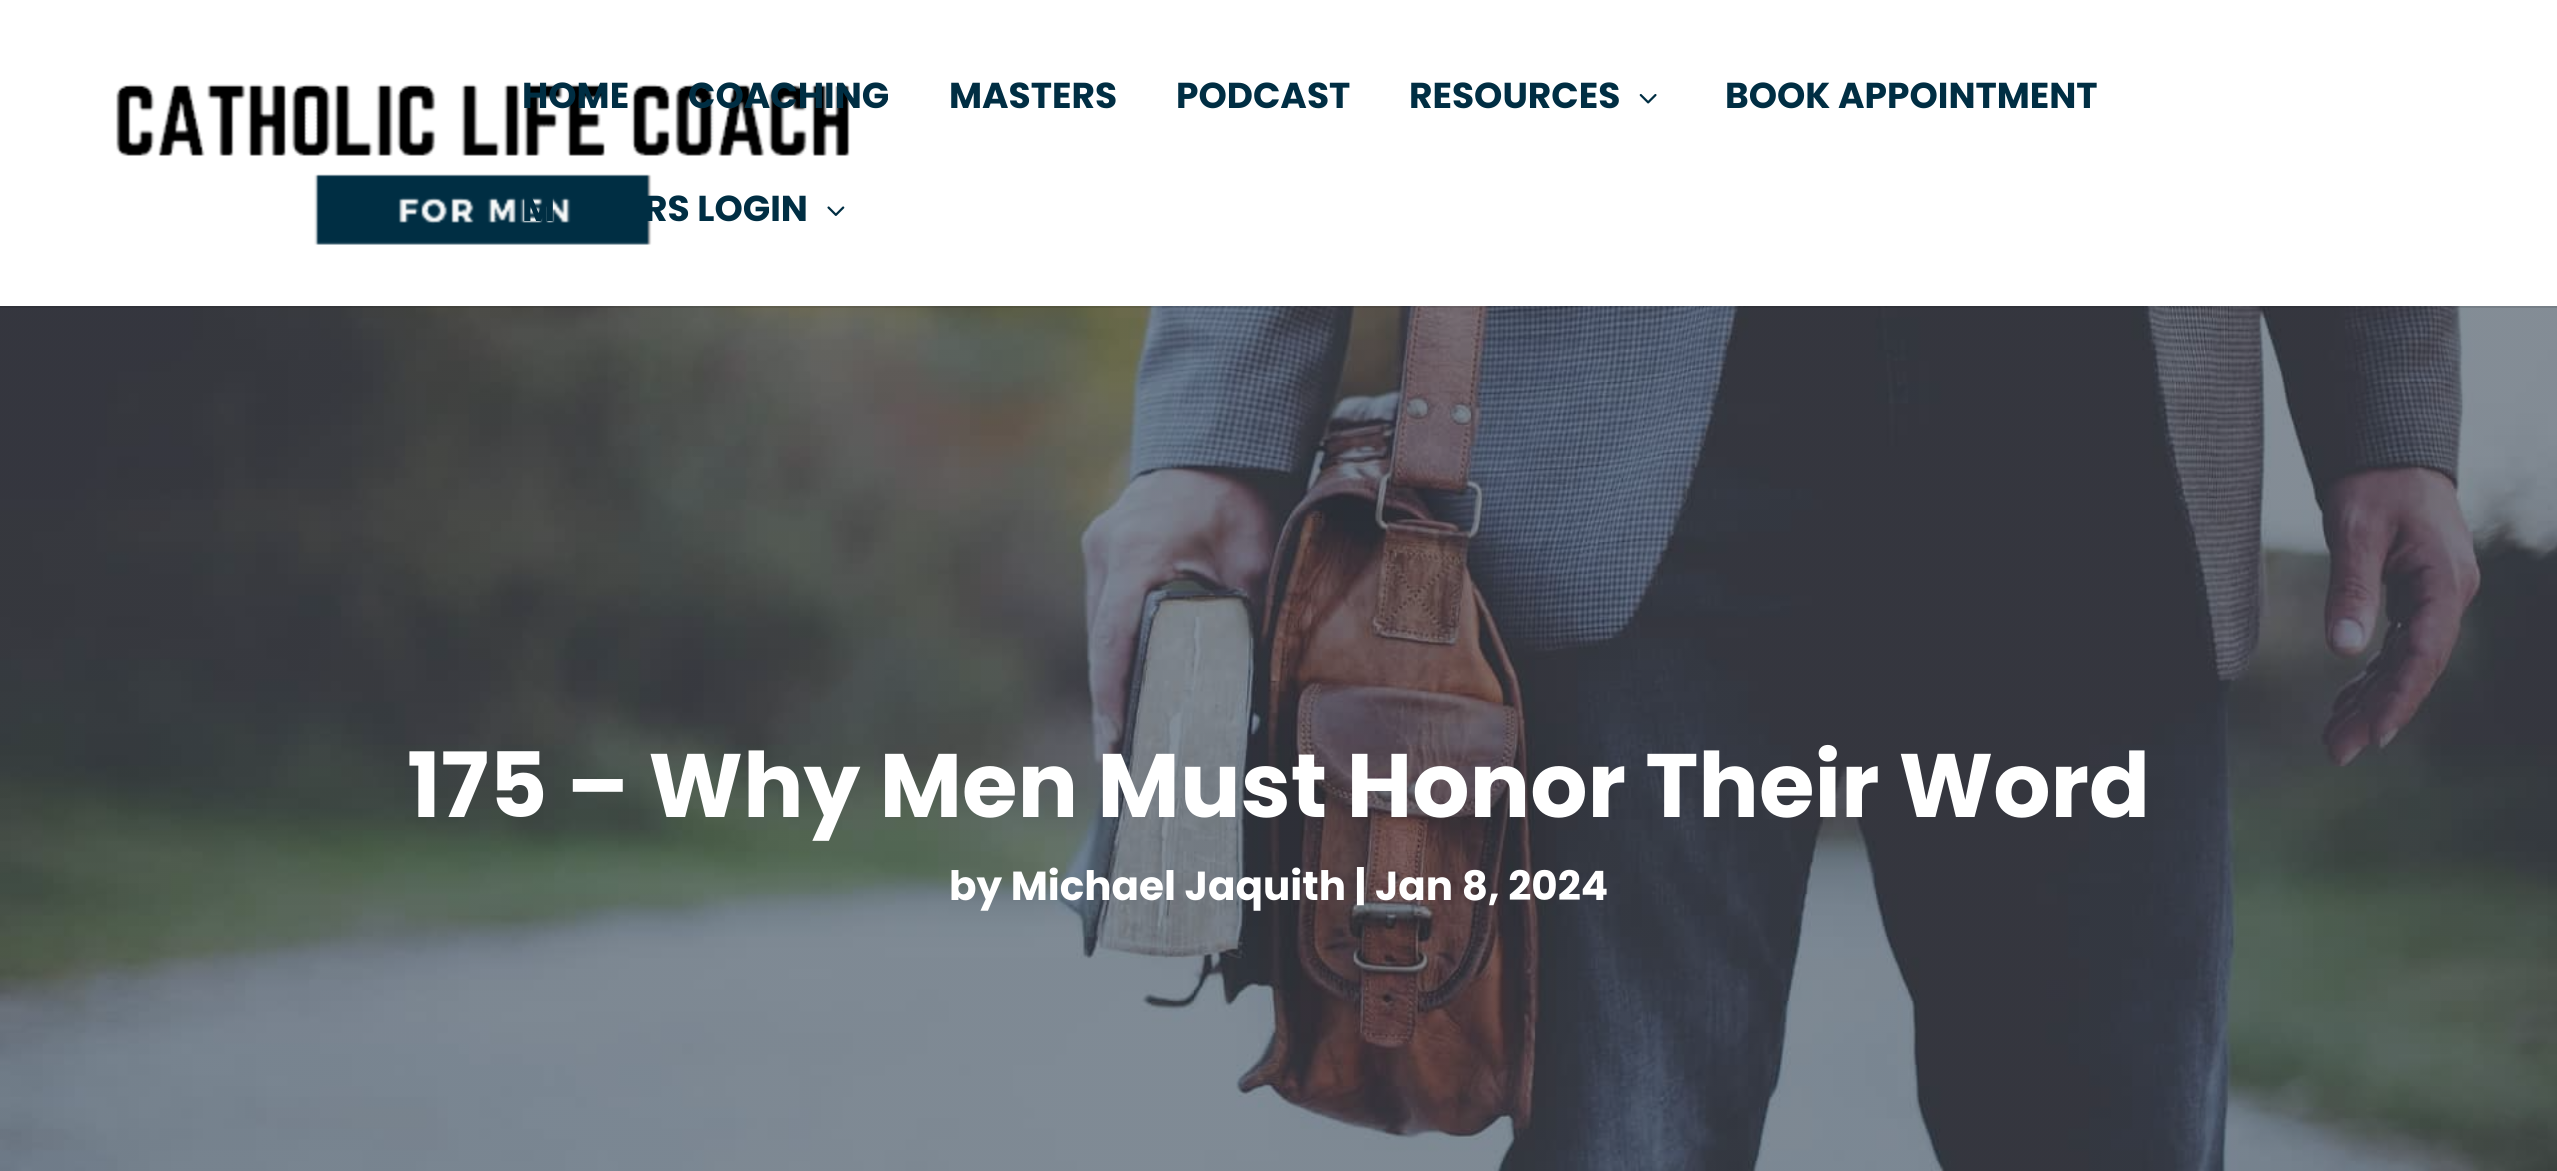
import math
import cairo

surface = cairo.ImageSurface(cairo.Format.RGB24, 2557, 1171)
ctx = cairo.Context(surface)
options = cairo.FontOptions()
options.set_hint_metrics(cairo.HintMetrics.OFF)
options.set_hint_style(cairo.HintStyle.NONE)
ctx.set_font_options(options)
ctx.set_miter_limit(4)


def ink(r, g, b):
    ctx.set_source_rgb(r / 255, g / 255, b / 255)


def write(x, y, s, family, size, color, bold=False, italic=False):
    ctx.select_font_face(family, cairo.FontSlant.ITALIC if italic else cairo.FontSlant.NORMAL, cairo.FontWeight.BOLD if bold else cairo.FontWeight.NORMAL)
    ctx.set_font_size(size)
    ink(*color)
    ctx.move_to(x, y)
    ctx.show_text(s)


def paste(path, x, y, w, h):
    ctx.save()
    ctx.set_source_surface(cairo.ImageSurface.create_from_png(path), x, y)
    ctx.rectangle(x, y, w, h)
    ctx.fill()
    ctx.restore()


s1 = dict(family="Poppins", size=36, color=(0, 46, 67), bold=True)
s2 = dict(family="Poppins", size=90, color=(255, 255, 255), bold=True)
s3 = dict(family="Poppins", size=40.5, color=(255, 255, 255), bold=True)

ink(255, 255, 255)
ctx.paint()
paste("pic4.png", 0, 306, 2557, 865)
ctx.set_source_rgba(0, 0, 0, 0.1)
ctx.rectangle(0, 306, 2557, 2)
ctx.fill()
paste("pic1.png", 116, 84, 734, 161)
write(522, 108, "HOME", **s1)
write(688, 108, "COACHING", **s1)
write(949, 108, "MASTERS", **s1)
write(1176, 108, "PODCAST", **s1)
write(1409, 108, "RESOURCES", **s1)
paste("pic2.png", 1639, 94, 18, 10)
write(1725, 108, "BOOK APPOINTMENT", **s1)
write(522, 221, "M", **s1)
write(644, 221, "RS LOGIN", **s1)
paste("pic3.png", 827, 206, 18, 10)
write(407, 817, "175 – Why Men Must Honor Their Word", **s2)
write(949, 900, "by Michael Jaquith | Jan 8, 2024", **s3)
surface.write_to_png("screenshot.png")
